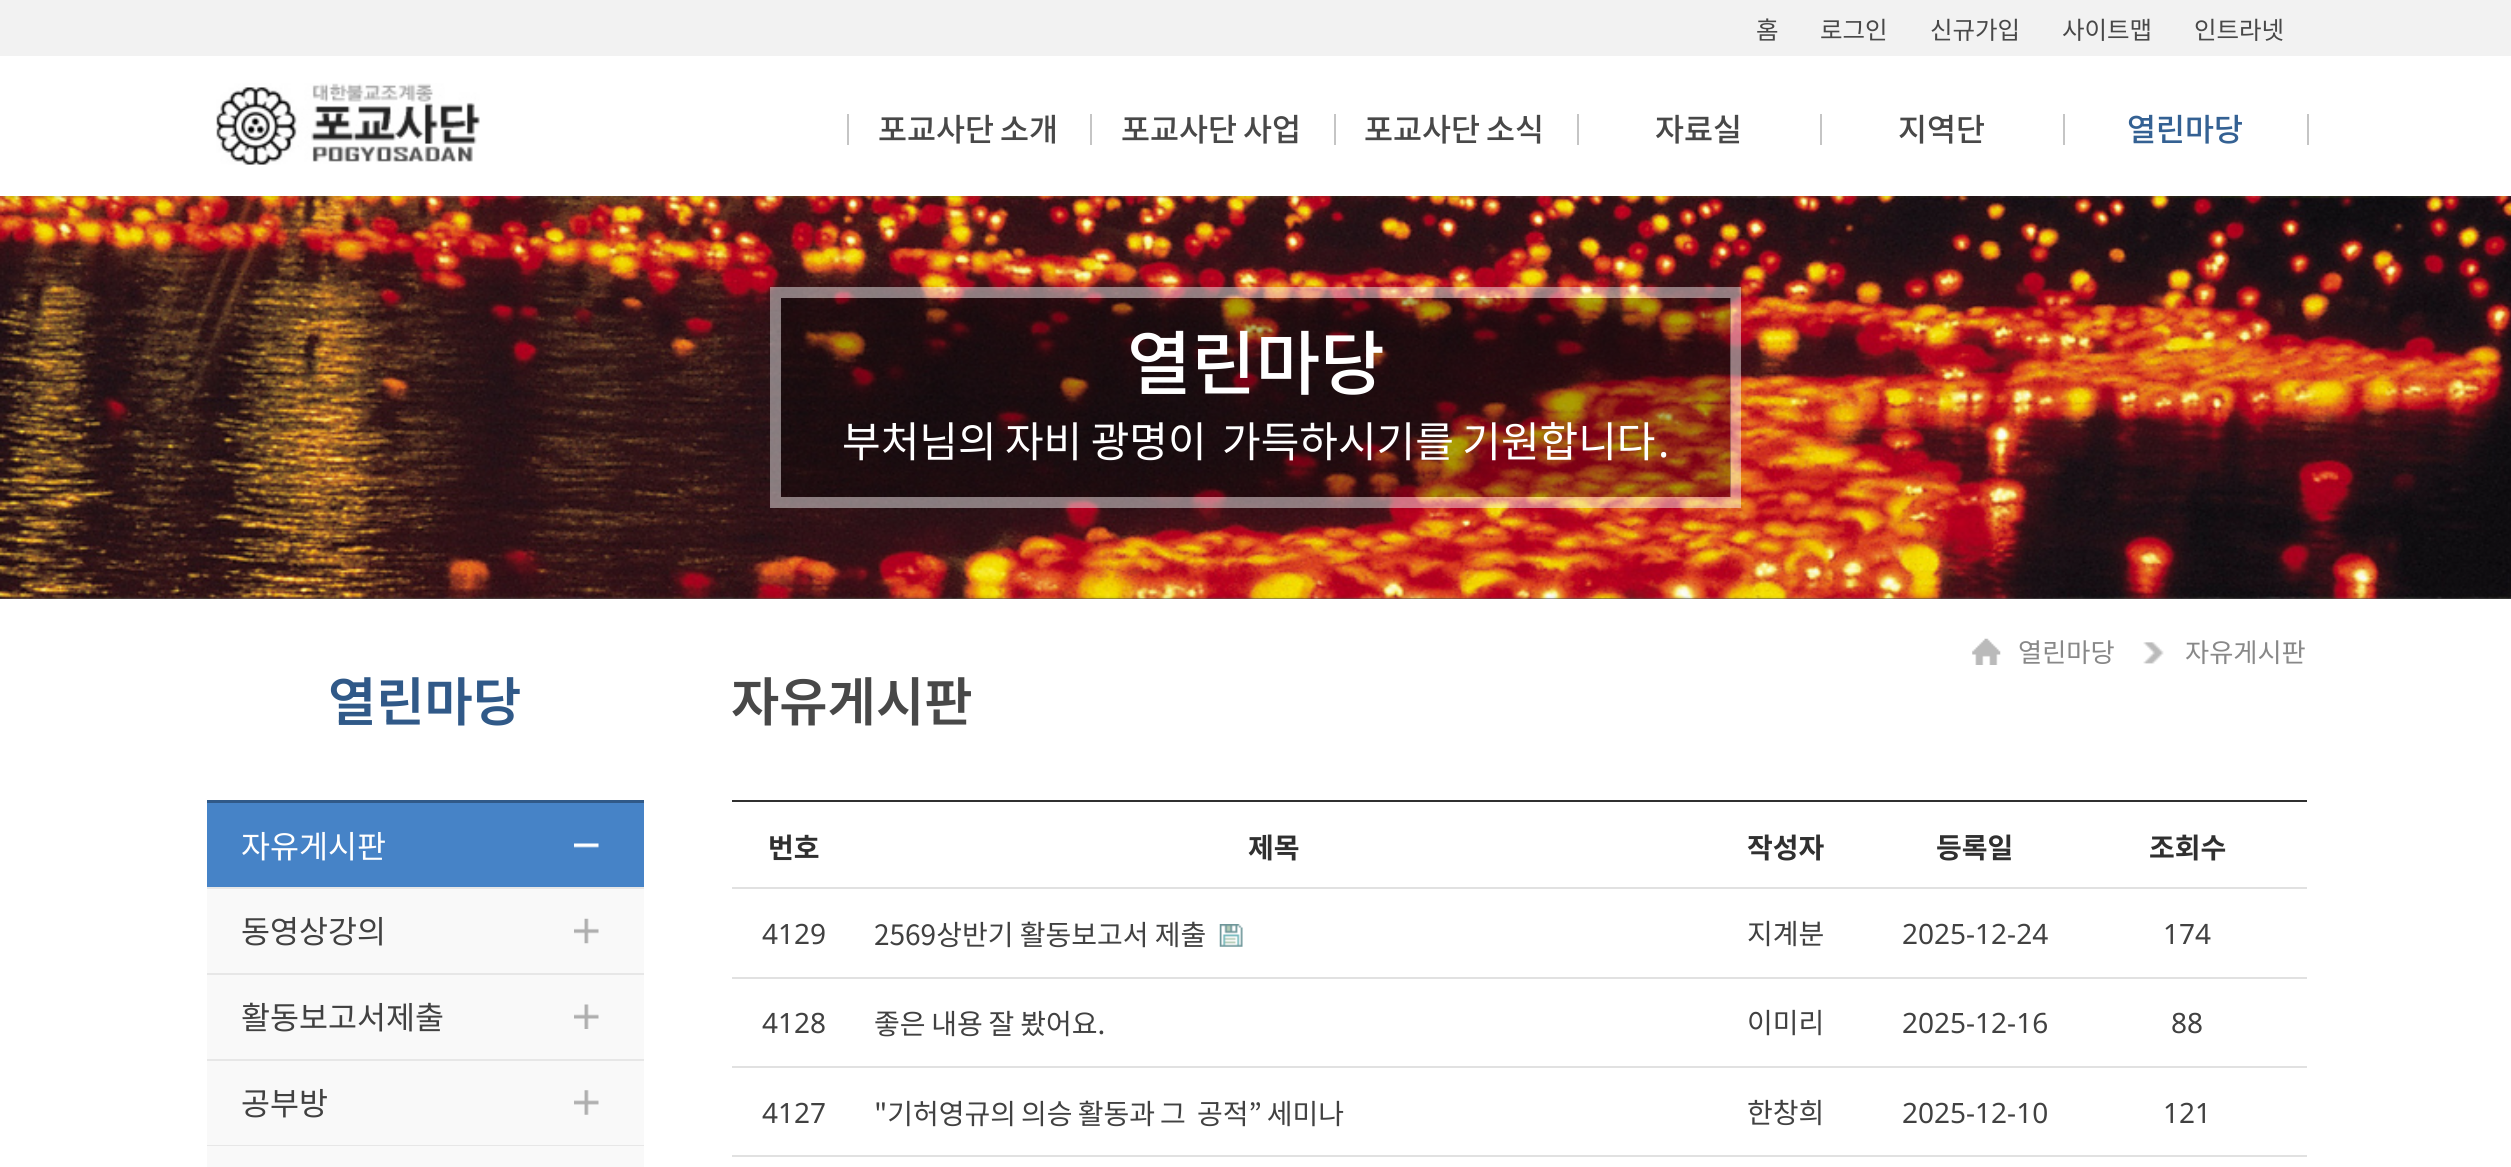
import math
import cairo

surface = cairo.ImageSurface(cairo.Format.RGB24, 2511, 1167)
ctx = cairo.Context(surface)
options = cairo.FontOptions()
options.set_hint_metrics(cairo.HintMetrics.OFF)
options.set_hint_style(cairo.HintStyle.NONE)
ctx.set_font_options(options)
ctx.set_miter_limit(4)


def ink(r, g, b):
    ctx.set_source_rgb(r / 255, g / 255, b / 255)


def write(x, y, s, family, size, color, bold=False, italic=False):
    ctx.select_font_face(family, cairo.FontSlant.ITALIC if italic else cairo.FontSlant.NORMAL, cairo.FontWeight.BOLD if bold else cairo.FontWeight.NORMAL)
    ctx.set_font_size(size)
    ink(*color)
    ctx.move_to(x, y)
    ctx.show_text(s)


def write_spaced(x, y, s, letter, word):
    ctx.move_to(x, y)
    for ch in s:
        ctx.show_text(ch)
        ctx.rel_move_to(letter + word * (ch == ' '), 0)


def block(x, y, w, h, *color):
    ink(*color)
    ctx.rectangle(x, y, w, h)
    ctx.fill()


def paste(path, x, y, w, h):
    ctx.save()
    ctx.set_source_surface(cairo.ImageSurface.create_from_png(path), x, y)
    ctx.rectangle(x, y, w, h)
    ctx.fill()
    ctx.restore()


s1 = dict(family="Noto Sans KR", size=24.5, color=(72, 72, 72))
s2 = dict(family="Noto Sans KR Medium", size=31.5, color=(72, 72, 72))
s3 = dict(family="Noto Sans KR Medium", size=31.5, color=(52, 97, 147))
s4 = dict(family="Noto Sans KR Medium", size=70, color=(255, 255, 255))
s5 = dict(family="Noto Sans", size=42, color=(255, 255, 255))
s6 = dict(family="Noto Sans KR", size=26.25, color=(136, 136, 136))
s7 = dict(family="Noto Sans KR SemiBold", size=52.5, color=(48, 89, 136))
s8 = dict(family="Noto Sans KR", size=31.5, color=(255, 255, 255))
s9 = dict(family="Noto Sans KR", size=31.5, color=(65, 65, 65))
s10 = dict(family="Noto Sans KR SemiBold", size=52.5, color=(72, 72, 72))
s11 = dict(family="Noto Sans KR", size=28, color=(48, 48, 48), bold=True)
s12 = dict(family="Noto Sans", size=28, color=(65, 65, 65))
s13 = dict(family="Noto Sans KR", size=28, color=(65, 65, 65))

ink(255, 255, 255)
ctx.paint()
block(0, 0, 2511, 56, 242, 242, 242)
write(1756, 39, "홈", **s1)
write(1820, 39, "로그인", **s1)
write(1930, 39, "신규가입", **s1)
write(2062, 39, "사이트맵", **s1)
write(2194, 39, "인트라넷", **s1)
paste("pic1.png", 216, 83, 264, 82)
block(1090, 114, 2, 31, 197, 197, 197)
block(847, 114, 2, 31, 197, 197, 197)
ctx.select_font_face("Noto Sans KR Medium")
ctx.set_font_size(31.5)
ink(72, 72, 72)
write_spaced(878, 141, "포교사단 소개", 0, -1)
block(1334, 114, 2, 31, 197, 197, 197)
ink(72, 72, 72)
write_spaced(1121, 141, "포교사단 사업", 0, -1)
block(1577, 114, 2, 31, 197, 197, 197)
ink(72, 72, 72)
write_spaced(1364, 141, "포교사단 소식", 0, -1)
block(1820, 114, 2, 31, 197, 197, 197)
write(1655, 141, "자료실", **s2)
block(2063, 114, 2, 31, 197, 197, 197)
write(1898, 141, "지역단", **s2)
block(2307, 114, 2, 31, 197, 197, 197)
write(2127, 141, "열린마당", **s3)
block(0, 598, 2511, 1, 80, 80, 80)
paste("pic2.png", 0, 196, 2511, 403)
ctx.rectangle(775.5, 292.5, 960, 210)
ctx.set_source_rgba(1, 1, 1, 0.45)
ctx.set_line_width(11)
ctx.stroke()
ctx.set_source_rgba(0, 0, 0, 0.3)
ctx.rectangle(781, 298, 950, 199)
ctx.fill()
write(1127, 389, "열린마당", **s4)
ctx.select_font_face("Noto Sans KR")
ctx.set_font_size(42)
write_spaced(842, 457, "부처님의 자비 광명이", 0, -1)
write_spaced(1222, 457, "가득하시기를 기원합니다", 0, -1)
write(1658, 457, ".", **s5)
paste("pic3.png", 1972, 638, 29, 27)
write(2018, 662, "열린마당", **s6)
paste("pic4.png", 2143, 642, 21, 22)
write(2185, 662, "자유게시판", **s6)
write(328, 721, "열린마당", **s7)
block(207, 800, 437, 3, 48, 89, 136)
block(207, 887, 437, 2, 231, 231, 231)
block(207, 803, 437, 84, 70, 131, 199)
write(241, 858, "자유게시판", **s8)
paste("pic5.png", 574, 843, 25, 5)
block(207, 973, 437, 2, 231, 231, 231)
block(207, 889, 437, 84, 249, 249, 249)
write(241, 943, "동영상강의", **s9)
paste("pic6.png", 574, 918, 25, 26)
block(207, 1059, 437, 2, 231, 231, 231)
block(207, 975, 437, 84, 249, 249, 249)
write(241, 1029, "활동보고서제출", **s9)
paste("pic7.png", 574, 1004, 25, 25)
block(207, 1145, 437, 1, 231, 231, 231)
block(207, 1061, 437, 84, 249, 249, 249)
write(241, 1115, "공부방", **s9)
paste("pic8.png", 574, 1090, 25, 25)
block(207, 1146, 437, 21, 249, 249, 249)
write(731, 721, "자유게시판", **s10)
block(732, 800, 1575, 2, 48, 48, 48)
write(768, 858, "번호", **s11)
write(1248, 858, "제목", **s11)
write(1747, 858, "작성자", **s11)
write(1936, 858, "등록일", **s11)
write(2149, 858, "조회수", **s11)
block(732, 887, 1575, 2, 225, 225, 225)
write(762, 944, "4129", **s12)
write(874, 945, "2569상반기 활동보고서 제출", **s13)
paste("pic9.png", 1219, 924, 24, 23)
write(1747, 944, "지계분", **s13)
write(1902, 944, "2025-12-24", **s12)
write(2163, 944, "174", **s12)
block(732, 977, 1575, 2, 225, 225, 225)
write(762, 1033, "4128", **s12)
ctx.select_font_face("Noto Sans KR")
write_spaced(874, 1034, "좋은 내용 잘 봤어요.", 0, -0.5)
write(1747, 1033, "이미리", **s13)
write(1902, 1033, "2025-12-16", **s12)
write(2171, 1033, "88", **s12)
block(732, 1066, 1575, 2, 225, 225, 225)
write(762, 1123, "4127", **s12)
ctx.select_font_face("Noto Sans KR")
write_spaced(874, 1124, "\"기허영규의 의승 활동과 그", 0, -1.25)
write_spaced(1197, 1124, "공적” 세미나", 0, -1.25)
write(1747, 1123, "한창희", **s13)
write(1902, 1123, "2025-12-10", **s12)
write(2163, 1123, "121", **s12)
block(732, 1155, 1575, 2, 225, 225, 225)
surface.write_to_png("screenshot.png")
